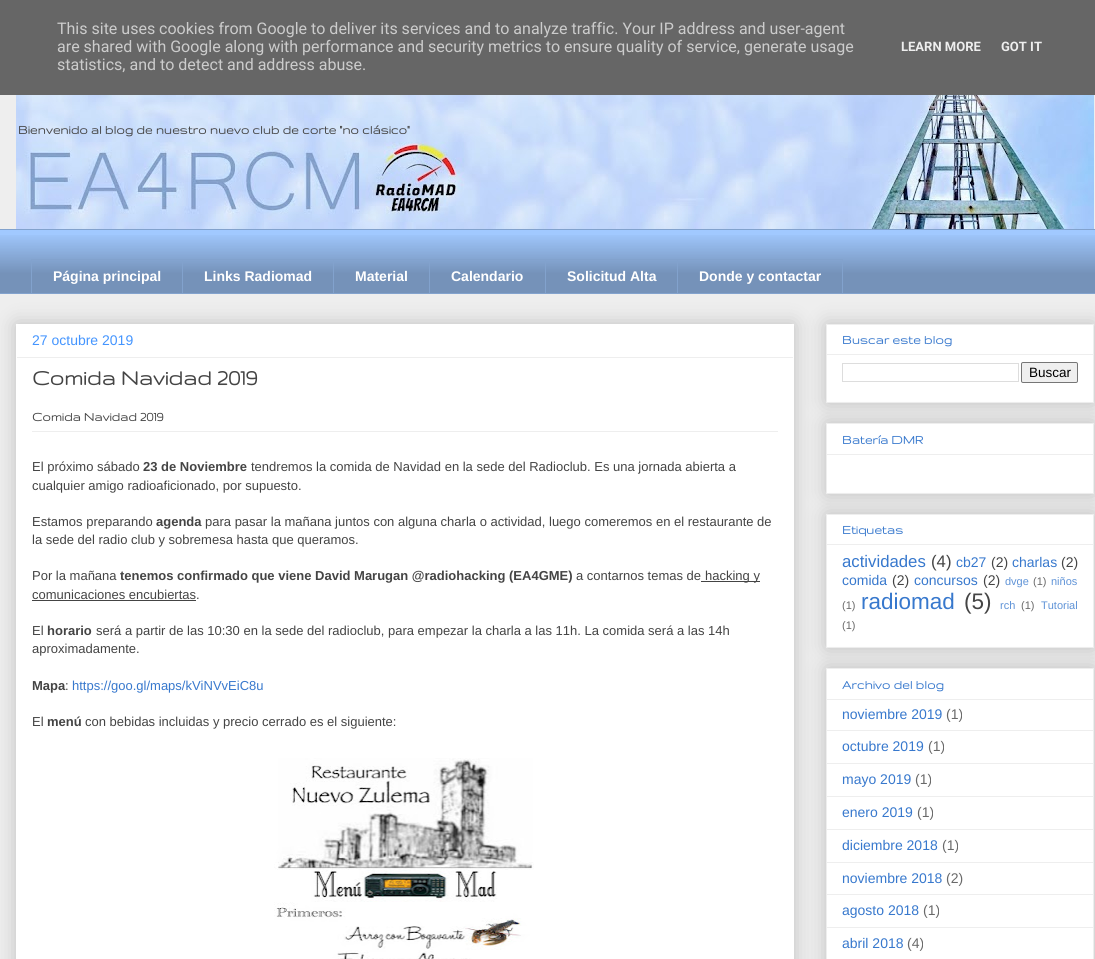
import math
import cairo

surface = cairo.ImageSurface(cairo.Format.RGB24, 1095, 959)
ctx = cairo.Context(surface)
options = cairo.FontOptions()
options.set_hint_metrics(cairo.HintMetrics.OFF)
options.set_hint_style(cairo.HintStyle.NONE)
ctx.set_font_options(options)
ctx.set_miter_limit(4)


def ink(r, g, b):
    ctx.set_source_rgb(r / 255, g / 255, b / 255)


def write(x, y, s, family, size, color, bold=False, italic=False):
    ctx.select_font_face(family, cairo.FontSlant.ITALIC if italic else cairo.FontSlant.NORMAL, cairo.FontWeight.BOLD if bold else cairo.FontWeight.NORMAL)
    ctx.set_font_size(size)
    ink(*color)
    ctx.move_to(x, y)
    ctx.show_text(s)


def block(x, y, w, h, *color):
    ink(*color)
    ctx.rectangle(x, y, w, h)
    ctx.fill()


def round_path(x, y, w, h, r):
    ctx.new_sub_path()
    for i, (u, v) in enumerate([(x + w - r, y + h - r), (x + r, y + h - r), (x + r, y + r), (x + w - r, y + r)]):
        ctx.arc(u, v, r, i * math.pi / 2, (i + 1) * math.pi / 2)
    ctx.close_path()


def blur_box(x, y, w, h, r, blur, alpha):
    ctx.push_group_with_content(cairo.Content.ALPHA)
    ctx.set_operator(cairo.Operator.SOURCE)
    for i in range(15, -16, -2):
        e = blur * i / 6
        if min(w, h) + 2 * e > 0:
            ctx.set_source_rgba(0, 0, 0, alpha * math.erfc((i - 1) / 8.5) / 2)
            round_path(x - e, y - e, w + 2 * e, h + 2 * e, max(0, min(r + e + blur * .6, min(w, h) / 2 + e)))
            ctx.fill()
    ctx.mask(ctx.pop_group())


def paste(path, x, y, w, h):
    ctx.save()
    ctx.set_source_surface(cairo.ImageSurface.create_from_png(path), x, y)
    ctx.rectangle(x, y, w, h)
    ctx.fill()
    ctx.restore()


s1 = dict(family="Roboto", size=16, color=(204, 204, 204))
s2 = dict(family="Roboto", size=13, color=(238, 238, 238), bold=True)
s3 = dict(family="Gruppo", size=14, color=(68, 68, 68), bold=True)
s4 = dict(family="Liberation Sans", size=14, color=(255, 255, 255), bold=True)
s5 = dict(family="Liberation Sans", size=14, color=(68, 149, 255))
s6 = dict(family="Gruppo", size=24, color=(68, 68, 68), bold=True)
s7 = dict(family="Liberation Sans", size=13, color=(68, 68, 68))
s8 = dict(family="Liberation Sans", size=13, color=(68, 68, 68), bold=True)
s9 = dict(family="Liberation Sans", size=13, color=(55, 120, 205))
s10 = dict(family="Gruppo", size=14, color=(55, 120, 205), bold=True)
s11 = dict(family="Liberation Sans", size=13.5, color=(0, 0, 0))
s12 = dict(family="Liberation Sans", size=16.75, color=(55, 120, 205))
s13 = dict(family="Liberation Sans", size=16.75, color=(68, 68, 68))
s14 = dict(family="Liberation Sans", size=14, color=(55, 120, 205))
s15 = dict(family="Liberation Sans", size=14, color=(68, 68, 68))
s16 = dict(family="Liberation Sans", size=11, color=(95, 147, 215))
s17 = dict(family="Liberation Sans", size=11, color=(105, 105, 105))
s18 = dict(family="Liberation Sans", size=22.5, color=(55, 120, 205))
s19 = dict(family="Liberation Sans", size=22.5, color=(68, 68, 68))
s20 = dict(family="Liberation Sans", size=14, color=(105, 105, 105))

ink(238, 238, 238)
ctx.paint()
block(0, 0, 1095, 95, 102, 102, 102)
write(57, 34, "This site uses cookies from Google to deliver its services and to analyze traffic. Your IP address and user-agent", **s1)
write(57, 52, "are shared with Google along with performance and security metrics to ensure quality of service, generate usage", **s1)
write(57, 70, "statistics, and to detect and address abuse.", **s1)
write(901, 51, "LEARN MORE", **s2)
write(1001, 51, "GOT IT", **s2)
paste("pic1.png", 16, 95, 1078, 134)
write(18, 134, "Bienvenido al blog de nuestro nuevo club de corte \"no clásico\"", **s3)
block(0, 230, 1095, 63, 161, 201, 255)
paste("pic2.png", 0, 235, 1095, 58)
block(0, 229, 1095, 1, 130, 162, 205)
block(31, 259, 646, 1, 130, 162, 205)
block(31, 259, 1, 35, 130, 162, 205)
write(53, 281, "Página principal", **s4)
block(182, 259, 1, 35, 130, 162, 205)
write(204, 281, "Links Radiomad", **s4)
block(333, 259, 1, 35, 130, 162, 205)
write(355, 281, "Material", **s4)
block(429, 259, 1, 35, 130, 162, 205)
write(451, 281, "Calendario", **s4)
block(545, 259, 1, 35, 130, 162, 205)
write(567, 281, "Solicitud Alta", **s4)
ctx.rectangle(677.5, 259.5, 165, 34)
ink(130, 162, 205)
ctx.set_line_width(1)
ctx.stroke()
write(699, 281, "Donde y contactar", **s4)
block(0, 293, 1095, 1, 130, 162, 205)
ink(0, 0, 0)
blur_box(16, 324, 778, 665, 0, 10, 0.2)
block(16, 324, 778, 635, 255, 255, 255)
write(32, 345, "27 octubre 2019", **s5)
block(17, 357, 776, 1, 238, 238, 238)
write(32, 385, "Comida Navidad 2019", **s6)
write(32, 421, "Comida Navidad 2019", **s3)
block(32, 431, 746, 1, 238, 238, 238)
write(32, 471, "El próximo sábado", **s7)
write(143, 471, "23 de Noviembre", **s8)
write(251, 471, "tendremos la comida de Navidad en la sede del Radioclub. Es una jornada abierta a", **s7)
write(32, 490, "cualquier amigo radioaficionado, por supuesto.", **s7)
write(32, 526, "Estamos preparando", **s7)
write(156, 526, "agenda", **s8)
write(205, 526, "para pasar la mañana juntos con alguna charla o actividad, luego comeremos en el restaurante de", **s7)
write(32, 544, "la sede del radio club y sobremesa hasta que queramos.", **s7)
write(32, 580, "Por la mañana", **s7)
write(120, 580, "tenemos confirmado que viene David Marugan @radiohacking (EA4GME)", **s8)
write(576, 580, "a contarnos temas de", **s7)
block(701, 581, 59, 1, 68, 68, 68)
write(705, 580, "hacking y", **s7)
write(32, 599, "comunicaciones encubiertas.", **s7)
block(32, 600, 164, 1, 68, 68, 68)
write(32, 635, "El", **s7)
write(47, 635, "horario", **s8)
write(96, 635, "será a partir de las 10:30 en la sede del radioclub, para empezar la charla a las 11h. La comida será a las 14h", **s7)
write(32, 653, "aproximadamente.", **s7)
write(32, 690, "Mapa", **s8)
write(65, 690, ":", **s7)
write(72, 690, "https://goo.gl/maps/kViNVvEiC8u", **s9)
write(32, 726, "El", **s7)
write(47, 726, "menú", **s8)
write(85, 726, "con bebidas incluidas y precio cerrado es el siguiente:", **s7)
paste("pic3.png", 274, 758, 260, 201)
ink(0, 0, 0)
blur_box(826, 324, 268, 79, 0, 10, 0.2)
ink(255, 255, 255)
ctx.rectangle(826.5, 324.5, 267, 78)
ctx.fill_preserve()
ink(238, 238, 238)
ctx.stroke()
write(842, 344, "Buscar este blog", **s10)
block(827, 354, 266, 1, 238, 238, 238)
ctx.rectangle(842.5, 363.5, 176, 18)
ink(221, 221, 221)
ctx.stroke()
ink(239, 239, 239)
round_path(1021.5, 362.5, 56, 20, 1.5)
ctx.fill_preserve()
ink(118, 118, 118)
ctx.stroke()
write(1029, 377, "Buscar", **s11)
ink(0, 0, 0)
blur_box(826, 423, 268, 71, 0, 10, 0.2)
ink(255, 255, 255)
ctx.rectangle(826.5, 423.5, 267, 70)
ctx.fill_preserve()
ink(238, 238, 238)
ctx.stroke()
write(842, 444, "Batería DMR", **s10)
block(827, 454, 266, 1, 238, 238, 238)
ink(0, 0, 0)
blur_box(826, 514, 268, 134, 0, 10, 0.2)
ink(255, 255, 255)
ctx.rectangle(826.5, 514.5, 267, 133)
ctx.fill_preserve()
ink(238, 238, 238)
ctx.stroke()
write(842, 534, "Etiquetas", **s10)
block(827, 544, 266, 1, 238, 238, 238)
write(842, 567, "actividades", **s12)
write(931, 567, "(4)", **s13)
write(956, 567, "cb27", **s14)
write(991, 567, "(2)", **s15)
write(1012, 567, "charlas", **s14)
write(1061, 567, "(2)", **s15)
write(842, 585, "comida", **s14)
write(892, 585, "(2)", **s15)
write(914, 585, "concursos", **s14)
write(983, 585, "(2)", **s15)
write(1005, 585, "dvge", **s16)
write(1033, 585, "(1)", **s17)
write(1051, 585, "niños", **s16)
write(842, 609, "(1)", **s17)
write(861, 609, "radiomad", **s18)
write(964, 609, "(5)", **s19)
write(1000, 609, "rch", **s16)
write(1021, 609, "(1)", **s17)
write(1041, 609, "Tutorial", **s16)
write(842, 629, "(1)", **s17)
ink(0, 0, 0)
blur_box(826, 668, 268, 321, 0, 10, 0.2)
ink(255, 255, 255)
ctx.rectangle(826.5, 668.5, 267, 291)
ctx.fill_preserve()
ink(238, 238, 238)
ctx.stroke()
write(842, 689, "Archivo del blog", **s10)
block(827, 699, 266, 1, 238, 238, 238)
write(842, 719, "noviembre 2019", **s14)
write(946, 719, "(1)", **s20)
block(827, 730, 266, 1, 238, 238, 238)
write(842, 751, "octubre 2019", **s14)
write(928, 751, "(1)", **s20)
block(827, 763, 266, 1, 238, 238, 238)
write(842, 784, "mayo 2019", **s14)
write(915, 784, "(1)", **s20)
block(827, 796, 266, 1, 238, 238, 238)
write(842, 817, "enero 2019", **s14)
write(917, 817, "(1)", **s20)
block(827, 829, 266, 1, 238, 238, 238)
write(842, 850, "diciembre 2018", **s14)
write(942, 850, "(1)", **s20)
block(827, 862, 266, 1, 238, 238, 238)
write(842, 883, "noviembre 2018", **s14)
write(946, 883, "(2)", **s20)
block(827, 894, 266, 1, 238, 238, 238)
write(842, 915, "agosto 2018", **s14)
write(923, 915, "(1)", **s20)
block(827, 927, 266, 1, 238, 238, 238)
write(842, 948, "abril 2018", **s14)
write(907, 948, "(4)", **s20)
surface.write_to_png("screenshot.png")
